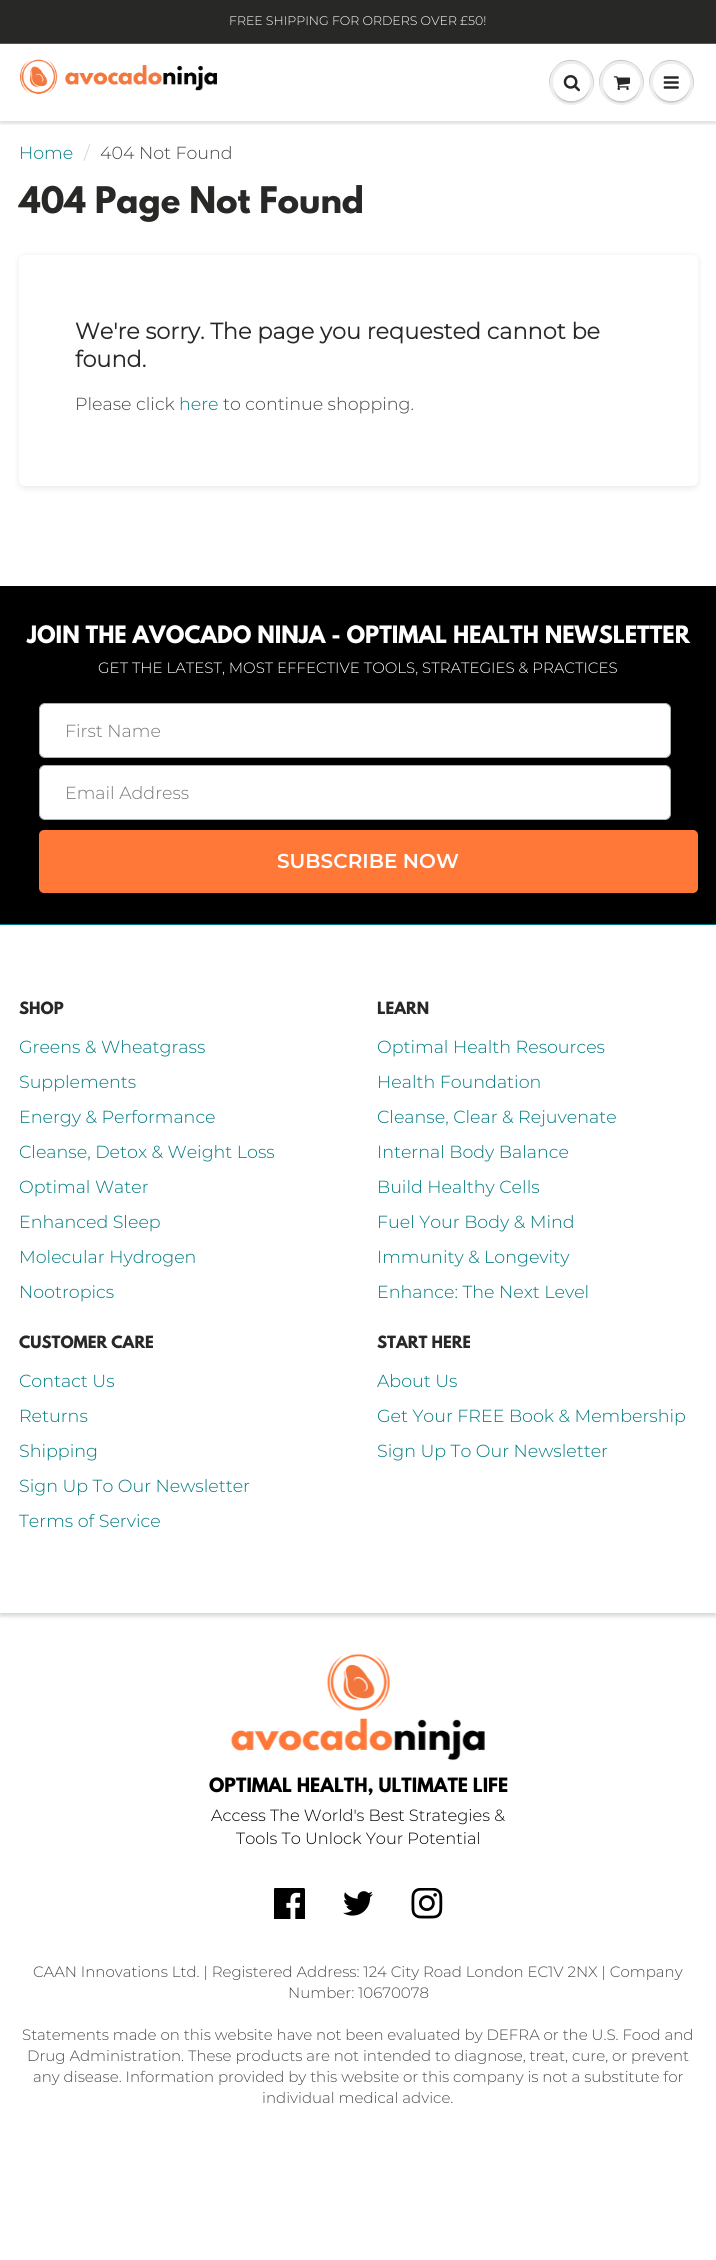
import math
import cairo

surface = cairo.ImageSurface(cairo.Format.RGB24, 716, 2260)
ctx = cairo.Context(surface)
options = cairo.FontOptions()
options.set_hint_metrics(cairo.HintMetrics.OFF)
options.set_hint_style(cairo.HintStyle.NONE)
ctx.set_font_options(options)
ctx.set_miter_limit(4)


def ink(r, g, b):
    ctx.set_source_rgb(r / 255, g / 255, b / 255)


def write(x, y, s, family, size, color, bold=False, italic=False):
    ctx.select_font_face(family, cairo.FontSlant.ITALIC if italic else cairo.FontSlant.NORMAL, cairo.FontWeight.BOLD if bold else cairo.FontWeight.NORMAL)
    ctx.set_font_size(size)
    ink(*color)
    ctx.move_to(x, y)
    ctx.show_text(s)


def block(x, y, w, h, *color):
    ink(*color)
    ctx.rectangle(x, y, w, h)
    ctx.fill()


def round_path(x, y, w, h, r):
    ctx.new_sub_path()
    for i, (u, v) in enumerate([(x + w - r, y + h - r), (x + r, y + h - r), (x + r, y + r), (x + w - r, y + r)]):
        ctx.arc(u, v, r, i * math.pi / 2, (i + 1) * math.pi / 2)
    ctx.close_path()


def blur_box(x, y, w, h, r, blur, alpha):
    ctx.push_group_with_content(cairo.Content.ALPHA)
    ctx.set_operator(cairo.Operator.SOURCE)
    for i in range(15, -16, -2):
        e = blur * i / 6
        if min(w, h) + 2 * e > 0:
            ctx.set_source_rgba(0, 0, 0, alpha * math.erfc((i - 1) / 8.5) / 2)
            round_path(x - e, y - e, w + 2 * e, h + 2 * e, max(0, min(r + e + blur * .6, min(w, h) / 2 + e)))
            ctx.fill()
    ctx.mask(ctx.pop_group())


def paste(path, x, y, w, h):
    ctx.save()
    ctx.set_source_surface(cairo.ImageSurface.create_from_png(path), x, y)
    ctx.rectangle(x, y, w, h)
    ctx.fill()
    ctx.restore()


s1 = dict(family="Montserrat Thin", size=12.5, color=(255, 255, 255))
s2 = dict(family="Montserrat Thin", size=17.5, color=(0, 122, 128))
s3 = dict(family="Montserrat Thin", size=17.5, color=(204, 204, 204))
s4 = dict(family="Montserrat Thin", size=17.5, color=(68, 68, 68))
s5 = dict(family="League Spartan", size=32.5, color=(40, 40, 39), bold=True)
s6 = dict(family="Montserrat", size=22.5, color=(40, 40, 39), bold=True)
s7 = dict(family="League Spartan", size=21.25, color=(255, 255, 255), bold=True)
s8 = dict(family="Montserrat Thin", size=15, color=(255, 255, 255))
s9 = dict(family="Montserrat Thin", size=17.5, color=(117, 117, 117))
s10 = dict(family="Montserrat SemiBold", size=20, color=(255, 255, 255))
s11 = dict(family="League Spartan", size=15, color=(40, 40, 39), bold=True)
s12 = dict(family="League Spartan", size=17.5, color=(0, 0, 0), bold=True)
s13 = dict(family="Montserrat Thin", size=16.25, color=(0, 0, 0))
s14 = dict(family="Montserrat Thin", size=15, color=(74, 74, 74))

ink(255, 255, 255)
ctx.paint()
block(0, 0, 716, 43, 40, 40, 39)
write(229, 25, "FREE SHIPPING FOR ORDERS OVER £50!", **s1)
ctx.save()
ctx.rectangle(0, 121, 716, 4)
ctx.clip()
ink(11, 25, 28)
blur_box(0, 45, 716, 79, 0, 1, 0.12)
ctx.restore()
block(0, 43, 716, 1, 0, 122, 128)
paste("pic1.png", 20, 59, 197, 35)
ink(237, 239, 239)
ctx.arc(571.5, 82.5, 22.5, 0, 2 * math.pi)
ctx.fill()
ink(201, 203, 203)
ctx.new_path()
ctx.move_to(571, 61)
ctx.curve_to(589, 61, 596, 78, 592, 91)
ctx.curve_to(602, 67, 568, 47, 553, 70)
ctx.curve_to(549, 75, 548, 82, 550, 88)
ctx.curve_to(548, 75, 555, 61, 571, 61)
ctx.close_path()
ctx.fill()
ctx.new_path()
ctx.move_to(590, 83)
ctx.curve_to(589.5, 104, 559.5, 108, 553.5, 88)
ctx.curve_to(557.5, 110, 590.5, 107, 590, 83)
ctx.close_path()
ctx.fill()
ink(255, 255, 255)
ctx.arc(571.5, 82.5, 18.5, 0, 2 * math.pi)
ctx.fill()
ctx.new_path()
ctx.move_to(571, 65)
ctx.curve_to(585, 65, 591, 76.5, 589.5, 87)
ctx.curve_to(594.5, 67.5, 568, 55, 556, 72)
ctx.curve_to(554, 75.5, 553, 79, 553, 83)
ctx.curve_to(553, 74, 559, 65, 571, 65)
ctx.close_path()
ctx.fill()
paste("pic2.png", 563, 75, 17, 17)
ink(237, 239, 239)
ctx.arc(621.5, 82.5, 22.5, 0, 2 * math.pi)
ctx.fill()
ink(201, 203, 203)
ctx.new_path()
ctx.move_to(621, 61)
ctx.curve_to(639, 61, 646, 78, 642, 91)
ctx.curve_to(652, 67, 618, 47, 603, 70)
ctx.curve_to(599, 75, 598, 82, 600, 88)
ctx.curve_to(598, 75, 605, 61, 621, 61)
ctx.close_path()
ctx.fill()
ctx.new_path()
ctx.move_to(640, 83)
ctx.curve_to(639.5, 104, 609.5, 108, 603.5, 88)
ctx.curve_to(607.5, 110, 640.5, 107, 640, 83)
ctx.close_path()
ctx.fill()
ink(255, 255, 255)
ctx.arc(621.5, 82.5, 18.5, 0, 2 * math.pi)
ctx.fill()
ctx.new_path()
ctx.move_to(621, 65)
ctx.curve_to(635, 65, 641, 76.5, 639.5, 87)
ctx.curve_to(644.5, 67.5, 618, 55, 606, 72)
ctx.curve_to(604, 75.5, 603, 79, 603, 83)
ctx.curve_to(603, 74, 609, 65, 621, 65)
ctx.close_path()
ctx.fill()
paste("pic3.png", 613, 76, 17, 14)
ink(237, 239, 239)
ctx.arc(671.5, 82.5, 22.5, 0, 2 * math.pi)
ctx.fill()
ink(201, 203, 203)
ctx.new_path()
ctx.move_to(671, 61)
ctx.curve_to(689, 61, 696, 78, 692, 91)
ctx.curve_to(702, 67, 668, 47, 653, 70)
ctx.curve_to(649, 75, 648, 82, 650, 88)
ctx.curve_to(648, 75, 655, 61, 671, 61)
ctx.close_path()
ctx.fill()
ctx.new_path()
ctx.move_to(690, 83)
ctx.curve_to(689.5, 104, 659.5, 108, 653.5, 88)
ctx.curve_to(657.5, 110, 690.5, 107, 690, 83)
ctx.close_path()
ctx.fill()
ink(255, 255, 255)
ctx.arc(671.5, 82.5, 18.5, 0, 2 * math.pi)
ctx.fill()
ctx.new_path()
ctx.move_to(671, 65)
ctx.curve_to(685, 65, 691, 76.5, 689.5, 87)
ctx.curve_to(694.5, 67.5, 668, 55, 656, 72)
ctx.curve_to(654, 75.5, 653, 79, 653, 83)
ctx.curve_to(653, 74, 659, 65, 671, 65)
ctx.close_path()
ctx.fill()
paste("pic4.png", 663, 76, 16, 13)
write(19, 159, "Home", **s2)
write(84, 159, "/", **s3)
write(100, 159, "404 Not Found", **s4)
write(19, 213, "404 Page Not Found", **s5)
ink(11, 25, 28)
blur_box(19, 256, 679, 232, 6, 3, 0.1)
ink(255, 255, 255)
round_path(19, 255, 679, 231, 6)
ctx.fill()
write(75, 339, "We're sorry. The page you requested cannot be", **s6)
write(75, 367, "found.", **s6)
write(75, 410, "Please click", **s4)
write(179, 410, "here", **s2)
write(223, 410, "to continue shopping.", **s4)
block(0, 586, 716, 338, 0, 0, 0)
write(27, 643, "JOIN THE AVOCADO NINJA - OPTIMAL HEALTH NEWSLETTER", **s7)
write(98, 673, "GET THE LATEST, MOST EFFECTIVE TOOLS, STRATEGIES & PRACTICES", **s8)
round_path(39.5, 703.5, 631, 54, 5.5)
ctx.fill_preserve()
ink(171, 176, 178)
ctx.set_line_width(1)
ctx.stroke()
write(65, 737, "First Name", **s9)
ink(255, 255, 255)
round_path(39.5, 765.5, 631, 54, 5.5)
ctx.fill_preserve()
ink(171, 176, 178)
ctx.stroke()
write(65, 799, "Email Address", **s9)
ink(255, 120, 56)
round_path(39, 830, 659, 63, 5)
ctx.fill()
write(277, 868, "SUBSCRIBE NOW", **s10)
ink(209, 215, 215)
blur_box(0, 928, 716, 688, 0, 2, 1)
block(0, 925, 716, 688, 255, 255, 255)
block(0, 924, 716, 1, 0, 122, 128)
write(19, 1014, "SHOP", **s11)
write(19, 1053, "Greens & Wheatgrass", **s2)
write(19, 1088, "Supplements", **s2)
write(19, 1123, "Energy & Performance", **s2)
write(19, 1158, "Cleanse, Detox & Weight Loss", **s2)
write(19, 1193, "Optimal Water", **s2)
write(19, 1228, "Enhanced Sleep", **s2)
write(19, 1263, "Molecular Hydrogen", **s2)
write(19, 1298, "Nootropics", **s2)
write(377, 1014, "LEARN", **s11)
write(377, 1053, "Optimal Health Resources", **s2)
write(377, 1088, "Health Foundation", **s2)
write(377, 1123, "Cleanse, Clear & Rejuvenate", **s2)
write(377, 1158, "Internal Body Balance", **s2)
write(377, 1193, "Build Healthy Cells", **s2)
write(377, 1228, "Fuel Your Body & Mind", **s2)
write(377, 1263, "Immunity & Longevity", **s2)
write(377, 1298, "Enhance: The Next Level", **s2)
write(19, 1348, "CUSTOMER CARE", **s11)
write(19, 1387, "Contact Us", **s2)
write(19, 1422, "Returns", **s2)
write(19, 1457, "Shipping", **s2)
write(19, 1492, "Sign Up To Our Newsletter", **s2)
write(19, 1527, "Terms of Service", **s2)
write(377, 1348, "START HERE", **s11)
write(377, 1387, "About Us", **s2)
write(377, 1422, "Get Your FREE Book & Membership", **s2)
write(377, 1457, "Sign Up To Our Newsletter", **s2)
paste("pic5.png", 230, 1654, 255, 107)
write(209, 1792, "OPTIMAL HEALTH, ULTIMATE LIFE", **s12)
write(211, 1821, "Access The World's Best Strategies &", **s13)
write(236, 1844, "Tools To Unlock Your Potential", **s13)
paste("pic6.png", 274, 1888, 31, 31)
paste("pic7.png", 343, 1891, 30, 25)
paste("pic8.png", 411, 1888, 32, 31)
write(33, 1977, "CAAN Innovations Ltd. | Registered Address: 124 City Road London EC1V 2NX | Company", **s14)
write(288, 1998, "Number: 10670078", **s14)
write(22, 2040, "Statements made on this website have not been evaluated by DEFRA or the U.S. Food and", **s14)
write(27, 2061, "Drug Administration. These products are not intended to diagnose, treat, cure, or prevent", **s14)
write(33, 2082, "any disease. Information provided by this website or this company is not a substitute for", **s14)
write(262, 2103, "individual medical advice.", **s14)
surface.write_to_png("screenshot.png")
